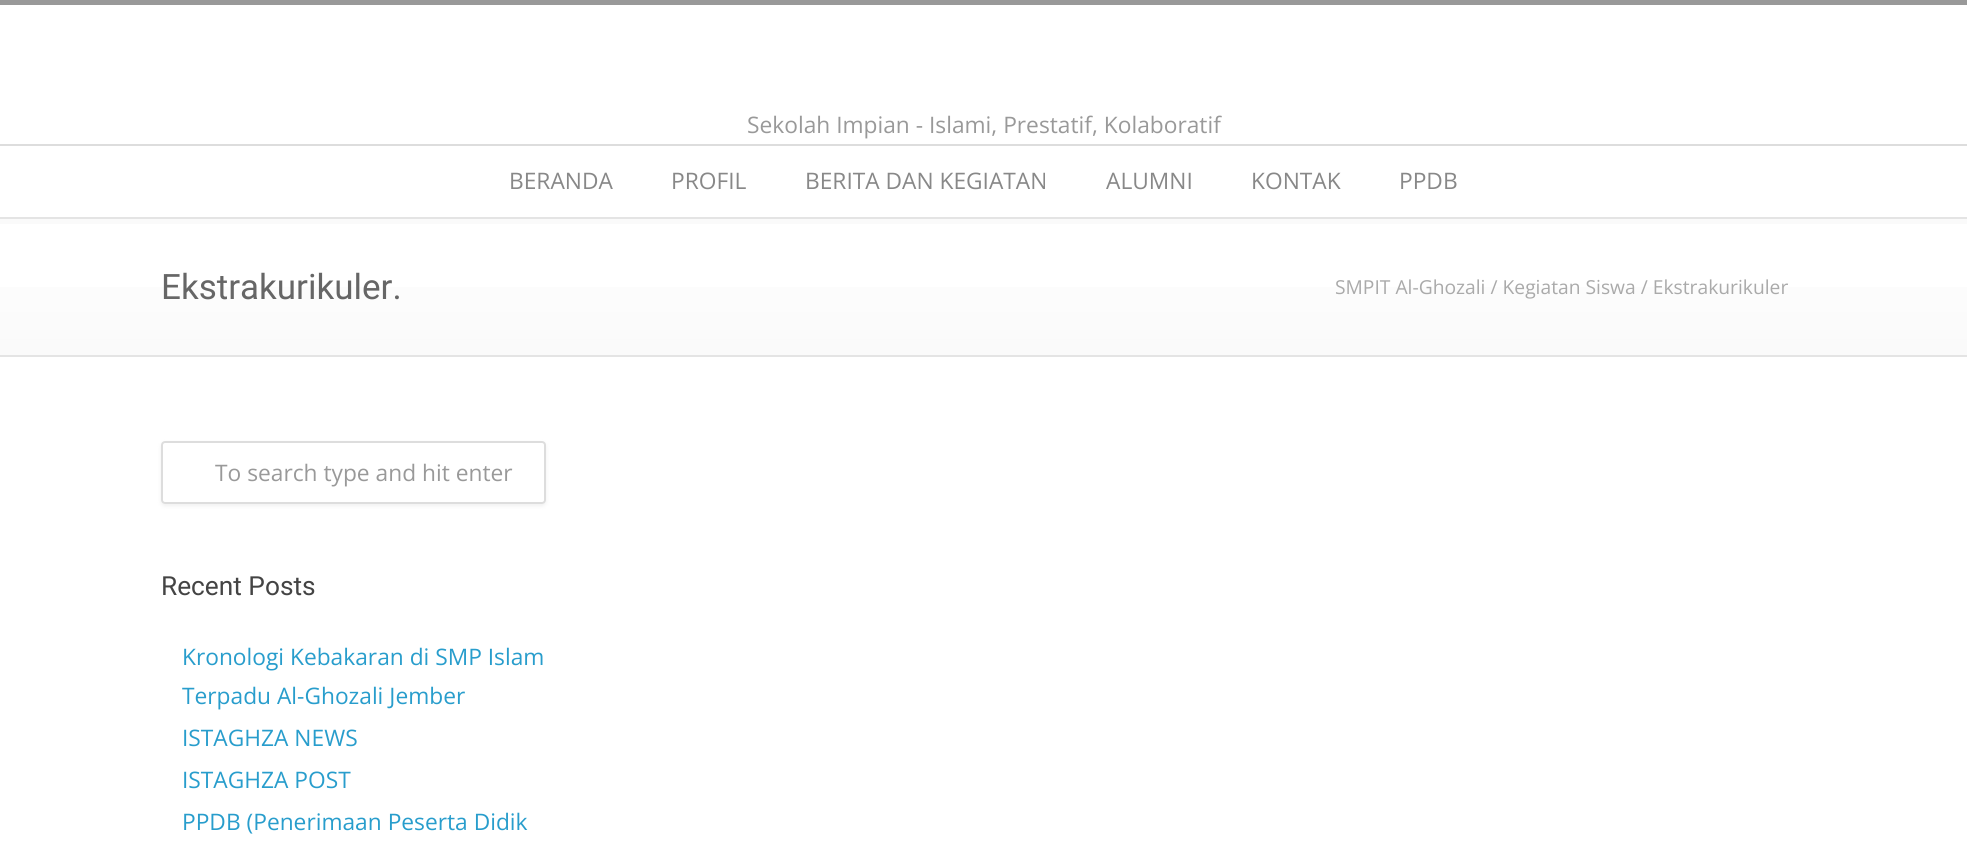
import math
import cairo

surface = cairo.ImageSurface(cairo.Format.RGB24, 1967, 853)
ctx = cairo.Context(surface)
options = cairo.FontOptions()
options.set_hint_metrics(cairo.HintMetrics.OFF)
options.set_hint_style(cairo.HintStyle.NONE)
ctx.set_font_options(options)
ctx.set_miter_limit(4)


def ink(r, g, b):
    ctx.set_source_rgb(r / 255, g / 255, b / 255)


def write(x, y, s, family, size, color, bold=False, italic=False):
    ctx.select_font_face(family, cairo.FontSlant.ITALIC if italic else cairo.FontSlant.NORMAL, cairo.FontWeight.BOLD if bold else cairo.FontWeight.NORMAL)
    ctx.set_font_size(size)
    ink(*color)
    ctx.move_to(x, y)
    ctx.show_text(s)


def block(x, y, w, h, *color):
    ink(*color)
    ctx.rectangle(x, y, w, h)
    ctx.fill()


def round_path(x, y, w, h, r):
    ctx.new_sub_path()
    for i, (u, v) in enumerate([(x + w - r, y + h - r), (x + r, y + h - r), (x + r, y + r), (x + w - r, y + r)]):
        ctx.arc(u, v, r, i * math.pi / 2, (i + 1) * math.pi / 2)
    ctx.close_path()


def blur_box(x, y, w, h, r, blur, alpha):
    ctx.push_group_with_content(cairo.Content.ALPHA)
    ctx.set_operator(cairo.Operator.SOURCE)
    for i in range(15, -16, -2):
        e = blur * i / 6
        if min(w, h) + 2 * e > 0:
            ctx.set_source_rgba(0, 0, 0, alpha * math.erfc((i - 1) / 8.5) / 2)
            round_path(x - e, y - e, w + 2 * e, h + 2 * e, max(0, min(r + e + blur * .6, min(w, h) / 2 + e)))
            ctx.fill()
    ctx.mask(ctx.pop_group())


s1 = dict(family="Open Sans", size=22.75, color=(153, 153, 153))
s2 = dict(family="Open Sans", size=22.75, color=(136, 136, 136))
s3 = dict(family="Roboto", size=35, color=(102, 102, 102))
s4 = dict(family="Open Sans", size=19.25, color=(170, 170, 170))
s5 = dict(family="Roboto", size=26.25, color=(68, 68, 68))
s6 = dict(family="Open Sans", size=22.75, color=(40, 157, 204))

ink(255, 255, 255)
ctx.paint()
block(0, 0, 1967, 5, 153, 153, 153)
write(747, 133, "Sekolah Impian - Islami, Prestatif, Kolaboratif", **s1)
block(0, 144, 1967, 2, 221, 221, 221)
write(509, 189, "BERANDA", **s2)
write(671, 189, "PROFIL", **s2)
write(805, 189, "BERITA DAN KEGIATAN", **s2)
write(1106, 189, "ALUMNI", **s2)
write(1251, 189, "KONTAK", **s2)
write(1399, 189, "PPDB", **s2)
gradient = cairo.LinearGradient(984, 355, 984, 219)
gradient.add_color_stop_rgba(0, 0.98, 0.98, 0.98, 1)
gradient.add_color_stop_rgba(1, 1, 1, 1, 1)
ctx.set_source(gradient)
ctx.rectangle(0, 287, 1967, 68)
ctx.fill()
block(0, 219, 1967, 5, 250, 250, 250)
block(0, 217, 1967, 2, 228, 228, 228)
block(0, 355, 1967, 2, 228, 228, 228)
write(161, 299, "Ekstrakurikuler.", **s3)
write(1335, 294, "SMPIT Al-Ghozali / Kegiatan Siswa / Ekstrakurikuler", **s4)
ctx.save()
ctx.set_fill_rule(cairo.FillRule.EVEN_ODD)
ctx.new_path()
ctx.move_to(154, 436)
ctx.line_to(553, 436)
ctx.line_to(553, 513)
ctx.line_to(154, 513)
ctx.close_path()
ctx.move_to(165, 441)
ctx.line_to(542, 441)
ctx.curve_to(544, 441, 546, 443, 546, 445)
ctx.line_to(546, 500)
ctx.curve_to(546, 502, 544, 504, 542, 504)
ctx.line_to(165, 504)
ctx.curve_to(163, 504, 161, 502, 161, 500)
ctx.line_to(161, 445)
ctx.curve_to(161, 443, 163, 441, 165, 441)
ctx.close_path()
ctx.clip()
ink(180, 180, 180)
blur_box(161, 443, 385, 63, 4, 2, 0.2)
ctx.restore()
round_path(162, 442, 383, 61, 3)
ink(221, 221, 221)
ctx.stroke()
write(215, 481, "To search type and hit enter", **s1)
write(161, 595, "Recent Posts", **s5)
write(182, 665, "Kronologi Kebakaran di SMP Islam", **s6)
write(182, 704, "Terpadu Al-Ghozali Jember", **s6)
write(182, 746, "ISTAGHZA NEWS", **s6)
write(182, 788, "ISTAGHZA POST", **s6)
write(182, 830, "PPDB (Penerimaan Peserta Didik", **s6)
surface.write_to_png("screenshot.png")
